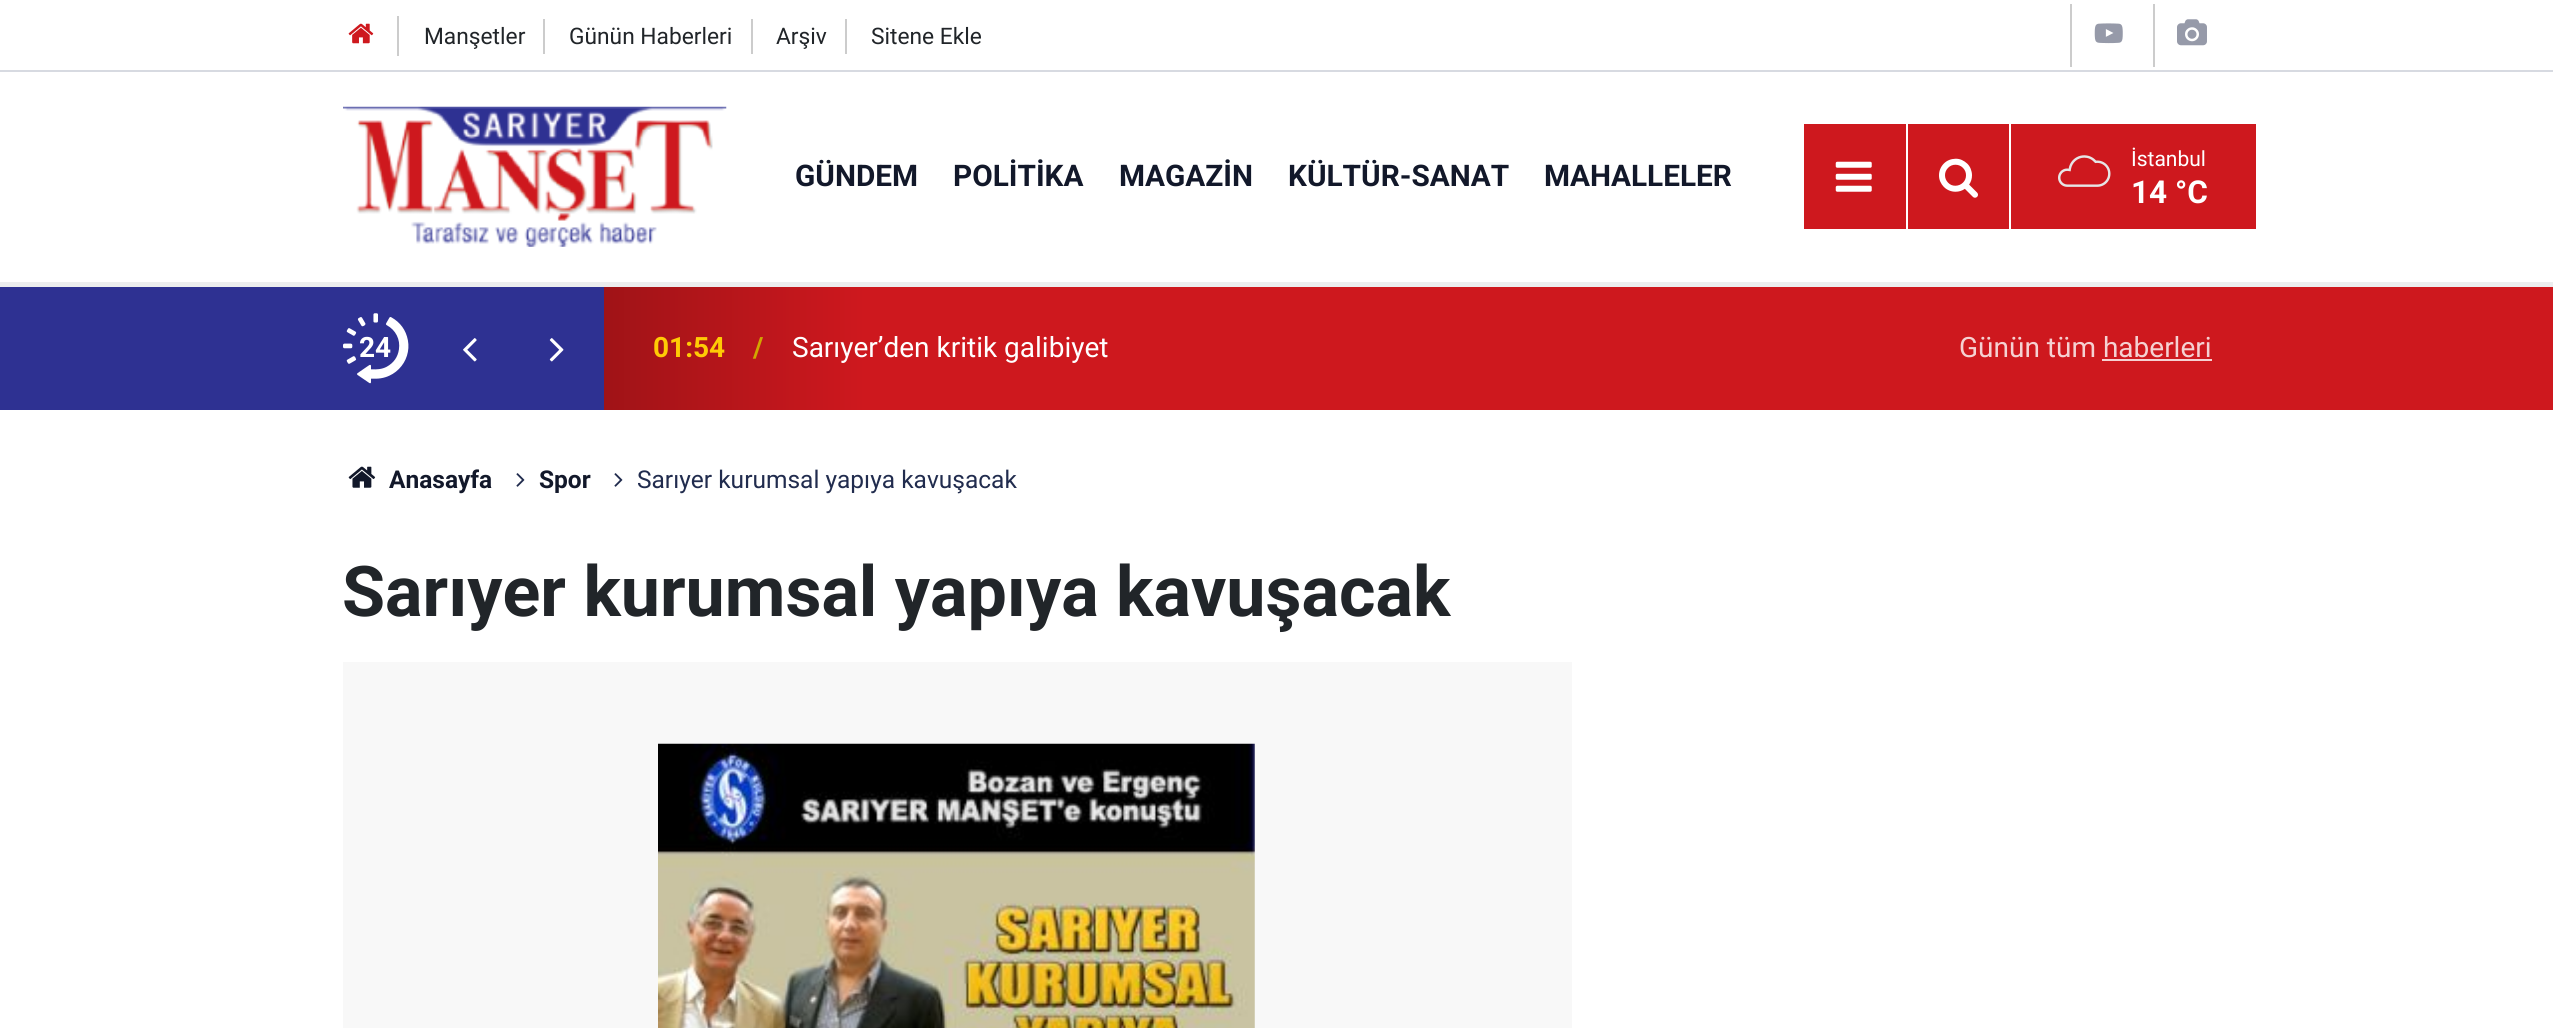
import math
import cairo

surface = cairo.ImageSurface(cairo.Format.RGB24, 2553, 1028)
ctx = cairo.Context(surface)
options = cairo.FontOptions()
options.set_hint_metrics(cairo.HintMetrics.OFF)
options.set_hint_style(cairo.HintStyle.NONE)
ctx.set_font_options(options)
ctx.set_miter_limit(4)


def ink(r, g, b):
    ctx.set_source_rgb(r / 255, g / 255, b / 255)


def write(x, y, s, family, size, color, bold=False, italic=False):
    ctx.select_font_face(family, cairo.FontSlant.ITALIC if italic else cairo.FontSlant.NORMAL, cairo.FontWeight.BOLD if bold else cairo.FontWeight.NORMAL)
    ctx.set_font_size(size)
    ink(*color)
    ctx.move_to(x, y)
    ctx.show_text(s)


def block(x, y, w, h, *color):
    ink(*color)
    ctx.rectangle(x, y, w, h)
    ctx.fill()


def paste(path, x, y, w, h):
    ctx.save()
    ctx.set_source_surface(cairo.ImageSurface.create_from_png(path), x, y)
    ctx.rectangle(x, y, w, h)
    ctx.fill()
    ctx.restore()


s1 = dict(family="Roboto", size=22.75, color=(33, 37, 41))
s2 = dict(family="Roboto", size=29.75, color=(18, 24, 42), bold=True)
s3 = dict(family="Roboto", size=21, color=(255, 255, 255))
s4 = dict(family="Roboto", size=31.5, color=(255, 255, 255), bold=True)
s5 = dict(family="Roboto", size=28, color=(255, 255, 255), bold=True)
s6 = dict(family="Roboto", size=28, color=(255, 203, 5), bold=True)
s7 = dict(family="Roboto", size=28, color=(209, 166, 0), bold=True)
s8 = dict(family="Roboto", size=28, color=(255, 255, 255))
s9 = dict(family="Roboto", size=28, color=(245, 209, 210))
s10 = dict(family="Roboto", size=24.5, color=(18, 24, 42), bold=True)
s11 = dict(family="Roboto", size=24.5, color=(33, 44, 78))
s12 = dict(family="Roboto", size=70, color=(33, 37, 41), bold=True)

ink(255, 255, 255)
ctx.paint()
block(397, 16, 2, 40, 204, 204, 204)
paste("pic1.png", 348, 23, 26, 21)
block(543, 19, 2, 35, 204, 204, 204)
write(424, 44, "Manşetler", **s1)
block(751, 19, 2, 35, 204, 204, 204)
write(569, 44, "Günün Haberleri", **s1)
block(845, 19, 2, 35, 204, 204, 204)
write(776, 44, "Arşiv", **s1)
write(871, 44, "Sitene Ekle", **s1)
block(2070, 4, 2, 63, 204, 204, 204)
paste("pic2.png", 2094, 23, 29, 21)
block(2153, 4, 2, 63, 204, 204, 204)
paste("pic3.png", 2177, 19, 30, 27)
block(0, 70, 2553, 2, 215, 218, 225)
block(0, 282, 2553, 5, 236, 237, 238)
paste("pic4.png", 343, 106, 384, 141)
write(795, 186, "GÜNDEM", **s2)
write(953, 186, "POLİTİKA", **s2)
write(1119, 186, "MAGAZİN", **s2)
write(1288, 186, "KÜLTÜR-SANAT", **s2)
write(1544, 186, "MAHALLELER", **s2)
block(1804, 124, 102, 105, 206, 24, 30)
paste("pic5.png", 1835, 161, 37, 31)
block(1908, 124, 101, 105, 206, 24, 30)
paste("pic6.png", 1939, 158, 39, 40)
block(2011, 124, 245, 105, 206, 24, 30)
paste("pic7.png", 2058, 155, 53, 32)
write(2131, 166, "İstanbul", **s3)
write(2131, 203, "14 °C", **s4)
block(0, 287, 343, 123, 46, 49, 146)
block(2212, 287, 341, 123, 206, 24, 30)
gradient = cairo.LinearGradient(342, 348, 2211, 348)
gradient.add_color_stop_rgba(0.05, 0.18, 0.192, 0.573, 1)
gradient.add_color_stop_rgba(0.14, 0.18, 0.192, 0.573, 1)
gradient.add_color_stop_rgba(0.14, 0.627, 0.075, 0.09, 1)
gradient.add_color_stop_rgba(0.28, 0.808, 0.094, 0.118, 1)
ctx.set_source(gradient)
ctx.rectangle(343, 287, 1869, 123)
ctx.fill()
paste("pic8.png", 343, 313, 66, 71)
write(359, 357, "24", **s5)
paste("pic9.png", 463, 338, 14, 24)
paste("pic10.png", 549, 338, 15, 24)
write(653, 357, "01:54", **s6)
write(753, 357, "/", **s7)
write(792, 357, "Sarıyer’den kritik galibiyet", **s8)
write(1959, 357, "Günün tüm haberleri", **s9)
block(2102, 359, 110, 2, 245, 209, 210)
paste("pic11.png", 348, 466, 28, 22)
write(389, 488, "Anasayfa", **s10)
paste("pic12.png", 516, 473, 9, 14)
write(539, 488, "Spor", **s10)
paste("pic12.png", 614, 473, 9, 14)
write(637, 488, "Sarıyer kurumsal yapıya kavuşacak", **s11)
write(342, 616, "Sarıyer kurumsal yapıya kavuşacak", **s12)
block(343, 662, 1229, 366, 248, 248, 248)
paste("pic13.png", 658, 743, 597, 285)
surface.write_to_png("screenshot.png")
